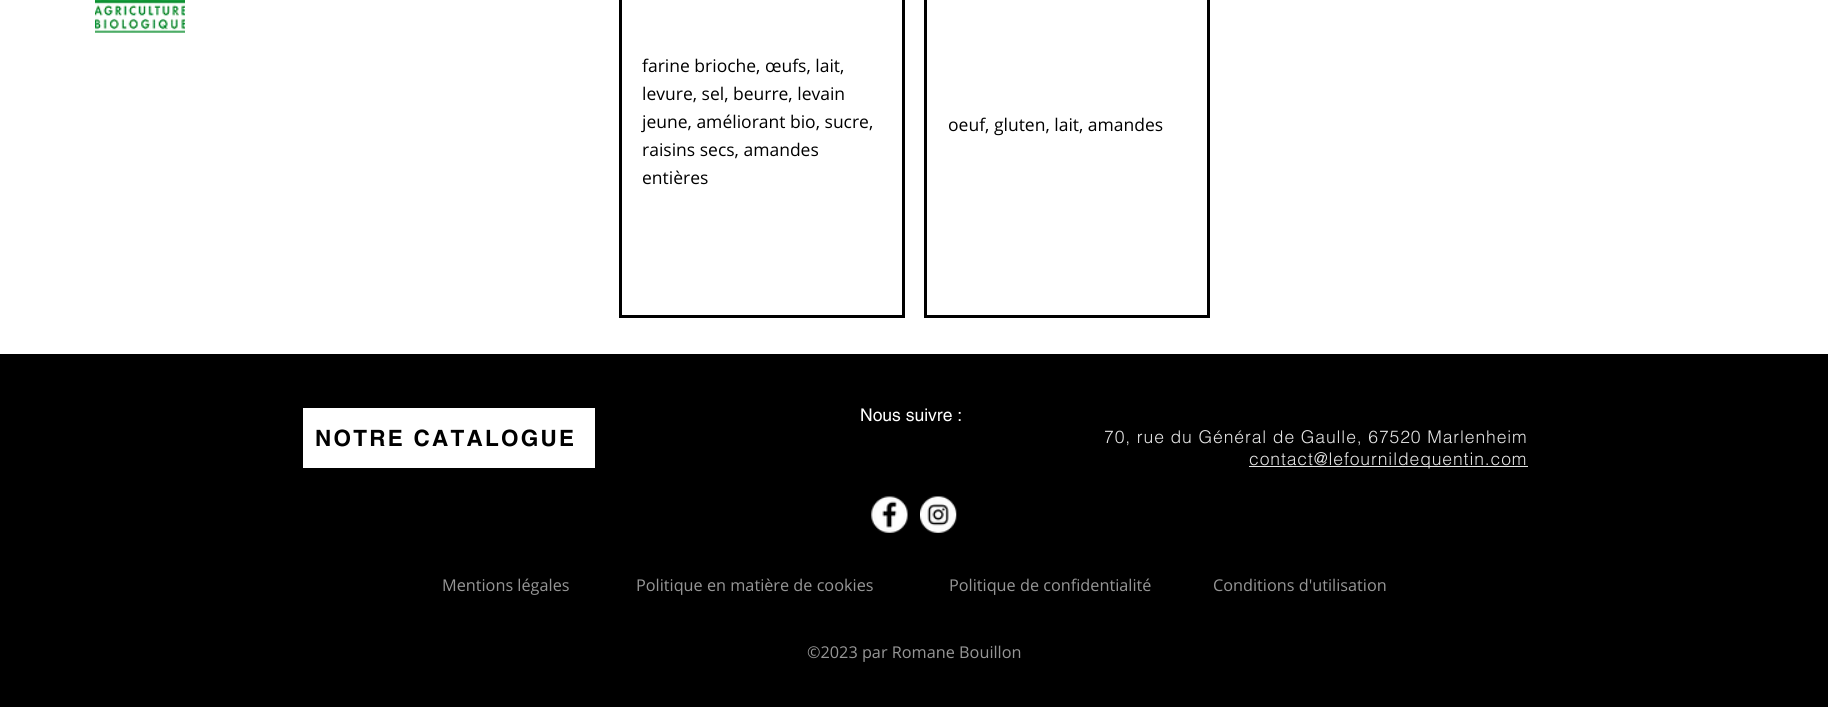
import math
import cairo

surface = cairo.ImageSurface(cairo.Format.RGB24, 1828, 707)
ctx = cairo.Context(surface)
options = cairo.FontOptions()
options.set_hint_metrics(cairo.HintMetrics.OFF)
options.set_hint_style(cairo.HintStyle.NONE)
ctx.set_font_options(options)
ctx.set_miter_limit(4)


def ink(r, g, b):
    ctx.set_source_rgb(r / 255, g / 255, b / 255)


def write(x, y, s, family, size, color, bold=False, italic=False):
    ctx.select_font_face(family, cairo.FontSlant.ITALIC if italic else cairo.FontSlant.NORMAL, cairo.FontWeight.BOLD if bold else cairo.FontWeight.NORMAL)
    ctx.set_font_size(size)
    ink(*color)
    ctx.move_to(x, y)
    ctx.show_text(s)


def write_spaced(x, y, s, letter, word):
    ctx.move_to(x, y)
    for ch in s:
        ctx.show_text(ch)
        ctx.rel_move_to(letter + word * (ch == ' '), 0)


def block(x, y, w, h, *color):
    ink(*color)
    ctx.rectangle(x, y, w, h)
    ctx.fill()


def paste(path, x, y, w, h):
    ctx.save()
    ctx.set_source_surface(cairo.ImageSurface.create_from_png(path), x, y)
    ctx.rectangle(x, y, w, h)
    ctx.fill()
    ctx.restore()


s1 = dict(family="Open Sans", size=17.5, color=(0, 0, 0))
s2 = dict(family="helvetica", size=17.5, color=(255, 255, 255))
s3 = dict(family="Open Sans", size=16.25, color=(150, 150, 150))

ink(255, 255, 255)
ctx.paint()
paste("pic1.png", 95, 0, 90, 33)
ctx.rectangle(620.5, -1.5, 283, 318)
ink(0, 0, 0)
ctx.set_line_width(3)
ctx.stroke()
write(642, 72, "farine brioche, œufs, lait,", **s1)
write(642, 100, "levure, sel, beurre, levain", **s1)
write(642, 128, "jeune, améliorant bio, sucre,", **s1)
write(642, 156, "raisins secs, amandes", **s1)
write(642, 184, "entières", **s1)
ctx.rectangle(925.5, -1.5, 283, 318)
ctx.stroke()
write(948, 131, "oeuf, gluten, lait, amandes", **s1)
block(0, 354, 1828, 353, 0, 0, 0)
write(860, 421, "Nous suivre :", **s2)
block(303, 408, 292, 60, 255, 255, 255)
ctx.select_font_face("helvetica", cairo.FontSlant.NORMAL, cairo.FontWeight.BOLD)
ctx.set_font_size(22.5)
ink(0, 0, 0)
write_spaced(315, 446, "NOTRE CATALOGUE", 2.25, 0)
ctx.select_font_face("helvetica Light")
ctx.set_font_size(17.5)
ink(229, 229, 229)
write_spaced(1104, 443, "70, rue du Général de Gaulle, 67520 Marlenheim", 0.9, 0)
block(1249, 466, 279, 1, 229, 229, 229)
write_spaced(1249, 465, "contact@lefournildequentin.com", 0.9, 0)
paste("pic2.png", 871, 496, 37, 37)
paste("pic3.png", 920, 496, 37, 37)
write(442, 591, "Mentions légales", **s3)
write(636, 591, "Politique en matière de cookies", **s3)
write(949, 591, "Politique de confidentialité", **s3)
write(1213, 591, "Conditions d'utilisation", **s3)
write(807, 658, "©2023 par Romane Bouillon", **s3)
surface.write_to_png("screenshot.png")
